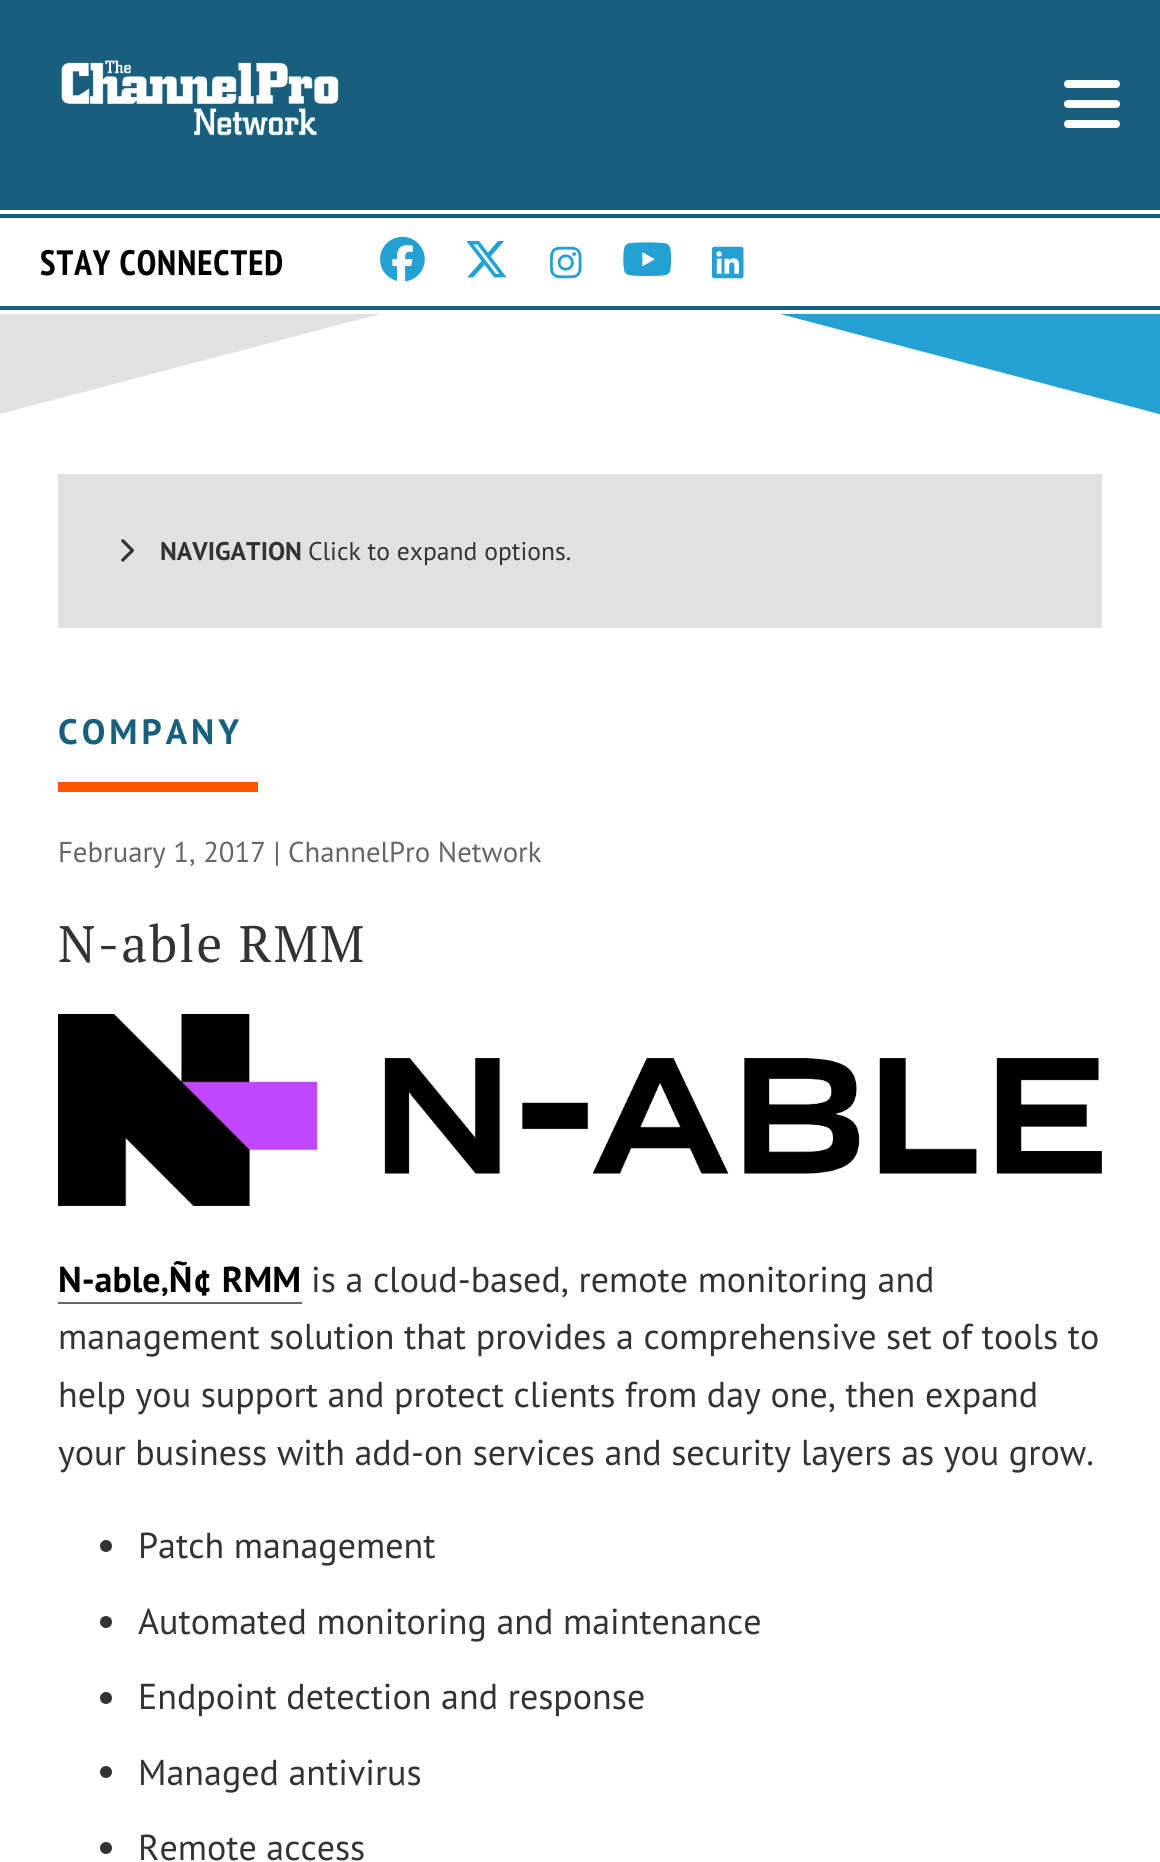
import math
import cairo

surface = cairo.ImageSurface(cairo.Format.RGB24, 1160, 1862)
ctx = cairo.Context(surface)
options = cairo.FontOptions()
options.set_hint_metrics(cairo.HintMetrics.OFF)
options.set_hint_style(cairo.HintStyle.NONE)
ctx.set_font_options(options)
ctx.set_miter_limit(4)


def ink(r, g, b):
    ctx.set_source_rgb(r / 255, g / 255, b / 255)


def write(x, y, s, family, size, color, bold=False, italic=False):
    ctx.select_font_face(family, cairo.FontSlant.ITALIC if italic else cairo.FontSlant.NORMAL, cairo.FontWeight.BOLD if bold else cairo.FontWeight.NORMAL)
    ctx.set_font_size(size)
    ink(*color)
    ctx.move_to(x, y)
    ctx.show_text(s)


def write_spaced(x, y, s, letter, word):
    ctx.move_to(x, y)
    for ch in s:
        ctx.show_text(ch)
        ctx.rel_move_to(letter + word * (ch == ' '), 0)


def block(x, y, w, h, *color):
    ink(*color)
    ctx.rectangle(x, y, w, h)
    ctx.fill()


def paste(path, x, y, w, h):
    ctx.save()
    ctx.set_source_surface(cairo.ImageSurface.create_from_png(path), x, y)
    ctx.rectangle(x, y, w, h)
    ctx.fill()
    ctx.restore()


s1 = dict(family="PT Sans", size=25.6, color=(51, 51, 51), bold=True)
s2 = dict(family="PT Sans", size=25.6, color=(51, 51, 51))
s3 = dict(family="PT Sans", size=28.75, color=(102, 102, 102))
s4 = dict(family="PT Sans", size=36, color=(0, 0, 0), bold=True)
s5 = dict(family="PT Sans", size=36, color=(51, 51, 51))

ink(255, 255, 255)
ctx.paint()
block(0, 0, 1160, 210, 23, 95, 125)
paste("pic1.png", 61, 60, 278, 76)
paste("pic2.png", 1064, 80, 56, 48)
block(0, 214, 1160, 4, 23, 95, 125)
block(0, 306, 1160, 4, 23, 95, 125)
ctx.select_font_face("PT Sans Narrow", cairo.FontSlant.NORMAL, cairo.FontWeight.BOLD)
ctx.set_font_size(35.25)
ink(0, 0, 0)
write_spaced(40, 275, "STAY CONNECTED", 1, 0)
paste("pic3.png", 380, 236, 45, 46)
paste("pic4.png", 466, 241, 41, 37)
paste("pic5.png", 550, 246, 32, 33)
paste("pic6.png", 623, 242, 49, 34)
paste("pic7.png", 712, 246, 32, 33)
ink(225, 225, 225)
ctx.new_path()
ctx.move_to(0, 314)
ctx.line_to(0, 414)
ctx.line_to(380, 314)
ctx.close_path()
ctx.fill()
ink(37, 160, 210)
ctx.new_path()
ctx.move_to(780, 314)
ctx.line_to(1160, 314)
ctx.line_to(1160, 414)
ctx.line_to(1159, 414)
ctx.close_path()
ctx.fill()
block(58, 474, 1044, 154, 225, 225, 225)
paste("pic8.png", 121, 539, 13, 23)
write(160, 560, "NAVIGATION", **s1)
write(308, 560, "Click to expand options.", **s2)
ctx.select_font_face("PT Sans", cairo.FontSlant.NORMAL, cairo.FontWeight.BOLD)
ctx.set_font_size(35.25)
ink(23, 95, 125)
write_spaced(58, 744, "COMPANY", 4, 0)
block(58, 782, 200, 10, 255, 84, 0)
write(58, 862, "February 1, 2017 | ChannelPro Network", **s3)
ctx.select_font_face("PT Serif")
ctx.set_font_size(51.25)
ink(51, 51, 51)
write_spaced(58, 962, "N-able RMM", 2, 0)
paste("pic9.png", 58, 1014, 1044, 192)
write(58, 1292, "N-able‚Ñ¢ RMM", **s4)
block(58, 1302, 244, 2, 102, 102, 102)
write(311, 1292, "is a cloud-based, remote monitoring and", **s5)
write(58, 1349, "management solution that provides a comprehensive set of tools to", **s5)
write(58, 1407, "help you support and protect clients from day one, then expand", **s5)
write(58, 1465, "your business with add-on services and security layers as you grow.", **s5)
ctx.new_path()
ctx.arc(106, 1546, 6, 0, 2 * math.pi)
ctx.fill()
write(138, 1558, "Patch management", **s5)
ctx.new_path()
ctx.arc(106, 1622, 6, 0, 2 * math.pi)
ctx.fill()
write(138, 1634, "Automated monitoring and maintenance", **s5)
ctx.new_path()
ctx.arc(106, 1698, 6, 0, 2 * math.pi)
ctx.fill()
write(138, 1709, "Endpoint detection and response", **s5)
ctx.new_path()
ctx.arc(106, 1772, 6, 0, 2 * math.pi)
ctx.fill()
write(138, 1785, "Managed antivirus", **s5)
ctx.new_path()
ctx.arc(106, 1848, 6, 0, 2 * math.pi)
ctx.fill()
write(138, 1860, "Remote access", **s5)
surface.write_to_png("screenshot.png")
